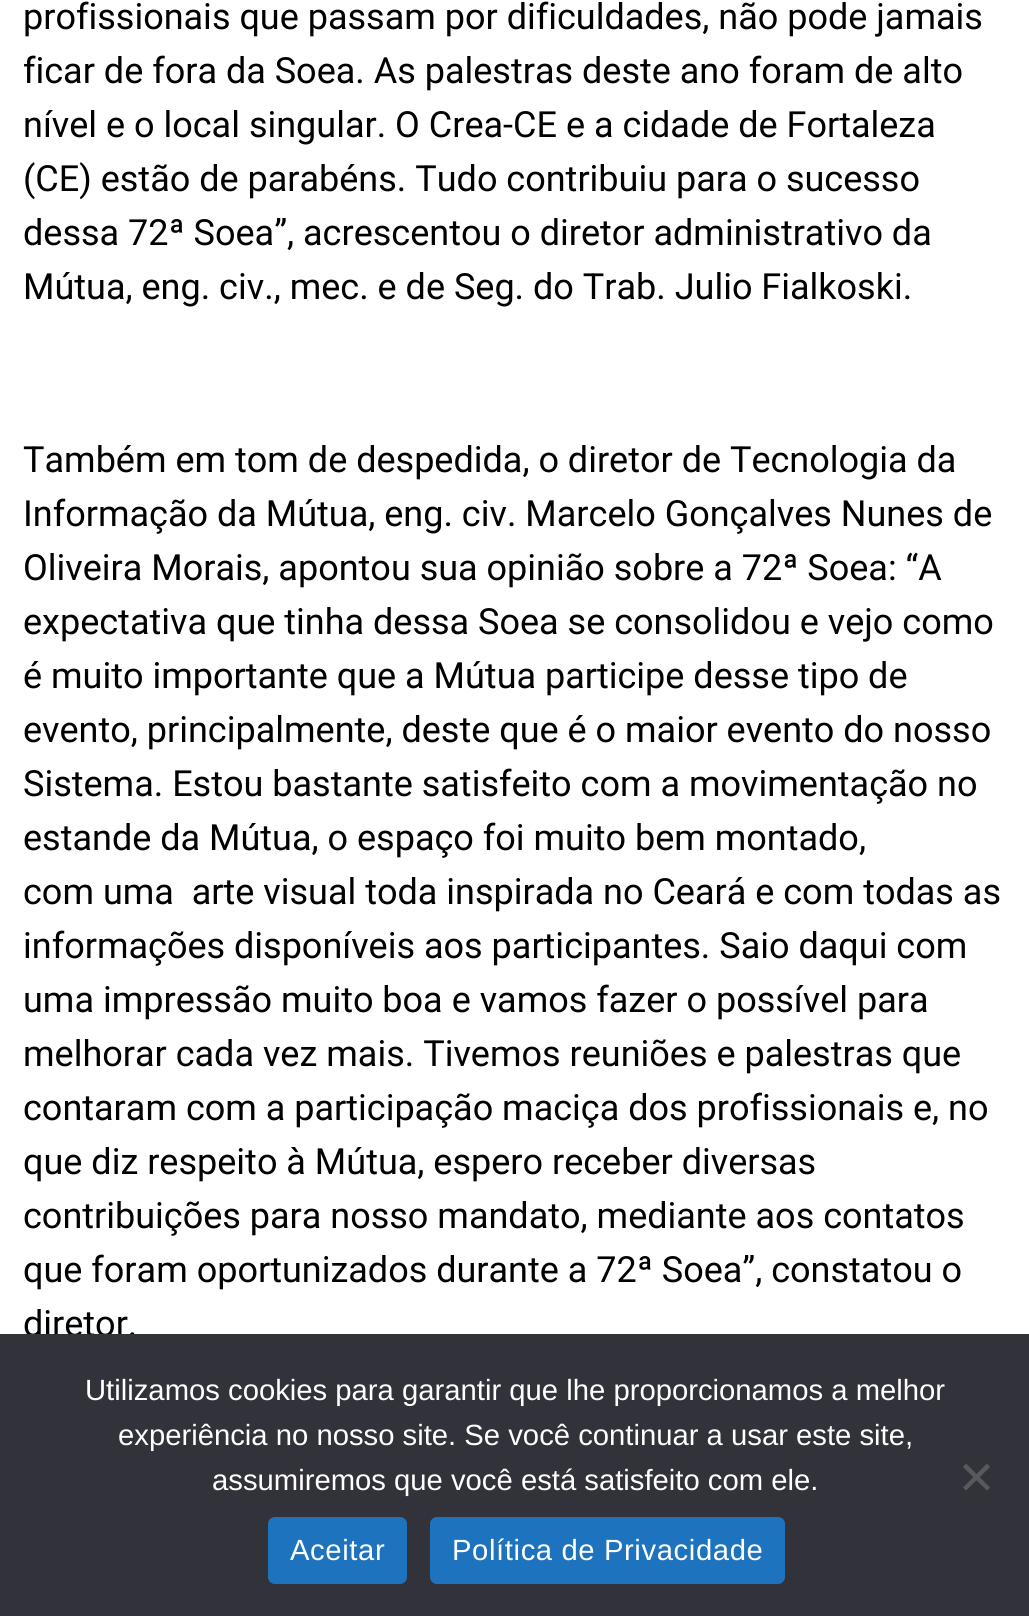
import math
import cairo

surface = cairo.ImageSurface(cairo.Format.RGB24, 1029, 1616)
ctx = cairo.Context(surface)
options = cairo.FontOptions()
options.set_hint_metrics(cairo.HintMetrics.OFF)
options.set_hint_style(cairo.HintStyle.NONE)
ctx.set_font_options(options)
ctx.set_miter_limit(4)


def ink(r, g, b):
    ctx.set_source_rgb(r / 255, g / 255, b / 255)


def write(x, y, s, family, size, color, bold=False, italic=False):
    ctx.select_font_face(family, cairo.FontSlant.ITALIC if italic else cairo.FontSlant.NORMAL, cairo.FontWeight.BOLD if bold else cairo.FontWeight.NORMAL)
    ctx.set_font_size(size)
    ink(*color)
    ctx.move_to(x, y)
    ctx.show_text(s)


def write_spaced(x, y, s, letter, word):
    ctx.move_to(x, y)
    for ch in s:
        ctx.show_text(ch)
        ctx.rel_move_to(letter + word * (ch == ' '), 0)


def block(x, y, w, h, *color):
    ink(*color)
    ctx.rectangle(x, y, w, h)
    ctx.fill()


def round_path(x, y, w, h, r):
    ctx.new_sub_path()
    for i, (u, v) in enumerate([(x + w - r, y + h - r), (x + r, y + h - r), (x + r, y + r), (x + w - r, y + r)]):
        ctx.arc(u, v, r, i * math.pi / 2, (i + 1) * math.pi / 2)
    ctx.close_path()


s1 = dict(family="Roboto", size=36, color=(0, 0, 0))
s2 = dict(family="Liberation Sans", size=29.25, color=(255, 255, 255))

ink(255, 255, 255)
ctx.paint()
write(23, 29, "profissionais que passam por dificuldades, não pode jamais", **s1)
write(23, 83, "ficar de fora da Soea. As palestras deste ano foram de alto", **s1)
write(23, 137, "nível e o local singular. O Crea-CE e a cidade de Fortaleza", **s1)
write(23, 191, "(CE) estão de parabéns. Tudo contribuiu para o sucesso", **s1)
write(23, 245, "dessa 72ª Soea”, acrescentou o diretor administrativo da", **s1)
write(23, 299, "Mútua, eng. civ., mec. e de Seg. do Trab. Julio Fialkoski.", **s1)
write(23, 472, "Também em tom de despedida, o diretor de Tecnologia da", **s1)
write(23, 526, "Informação da Mútua, eng. civ. Marcelo Gonçalves Nunes de", **s1)
write(23, 580, "Oliveira Morais, apontou sua opinião sobre a 72ª Soea: “A", **s1)
write(23, 634, "expectativa que tinha dessa Soea se consolidou e vejo como", **s1)
write(23, 688, "é muito importante que a Mútua participe desse tipo de", **s1)
write(23, 742, "evento, principalmente, deste que é o maior evento do nosso", **s1)
write(23, 796, "Sistema. Estou bastante satisfeito com a movimentação no", **s1)
write(23, 850, "estande da Mútua, o espaço foi muito bem montado,", **s1)
write(23, 904, "com uma  arte visual toda inspirada no Ceará e com todas as", **s1)
write(23, 958, "informações disponíveis aos participantes. Saio daqui com", **s1)
write(23, 1012, "uma impressão muito boa e vamos fazer o possível para", **s1)
write(23, 1066, "melhorar cada vez mais. Tivemos reuniões e palestras que", **s1)
write(23, 1120, "contaram com a participação maciça dos profissionais e, no", **s1)
write(23, 1174, "que diz respeito à Mútua, espero receber diversas", **s1)
write(23, 1228, "contribuições para nosso mandato, mediante aos contatos", **s1)
write(23, 1282, "que foram oportunizados durante a 72ª Soea”, constatou o", **s1)
write(23, 1336, "diretor.", **s1)
block(0, 1334, 1029, 282, 50, 50, 58)
write(85, 1400, "Utilizamos cookies para garantir que lhe proporcionamos a melhor", **s2)
write(118, 1445, "experiência no nosso site. Se você continuar a usar este site,", **s2)
write(212, 1490, "assumiremos que você está satisfeito com ele.", **s2)
ink(89, 89, 93)
ctx.new_path()
ctx.move_to(987, 1463.5)
ctx.line_to(990, 1467)
ctx.line_to(966, 1490.5)
ctx.line_to(963, 1487.5)
ctx.close_path()
ctx.fill()
ctx.new_path()
ctx.move_to(963, 1467)
ctx.line_to(966, 1463.5)
ctx.line_to(990, 1487.5)
ctx.line_to(987, 1490.5)
ctx.close_path()
ctx.fill()
ink(30, 115, 190)
round_path(268, 1517, 139, 67, 7)
ctx.fill()
ink(255, 255, 255)
write_spaced(290, 1560, "Aceitar", 0.6, 0)
ink(30, 115, 190)
round_path(430, 1517, 355, 67, 7)
ctx.fill()
ink(255, 255, 255)
write_spaced(452, 1560, "Política de Privacidade", 0.6, 0)
surface.write_to_png("screenshot.png")
